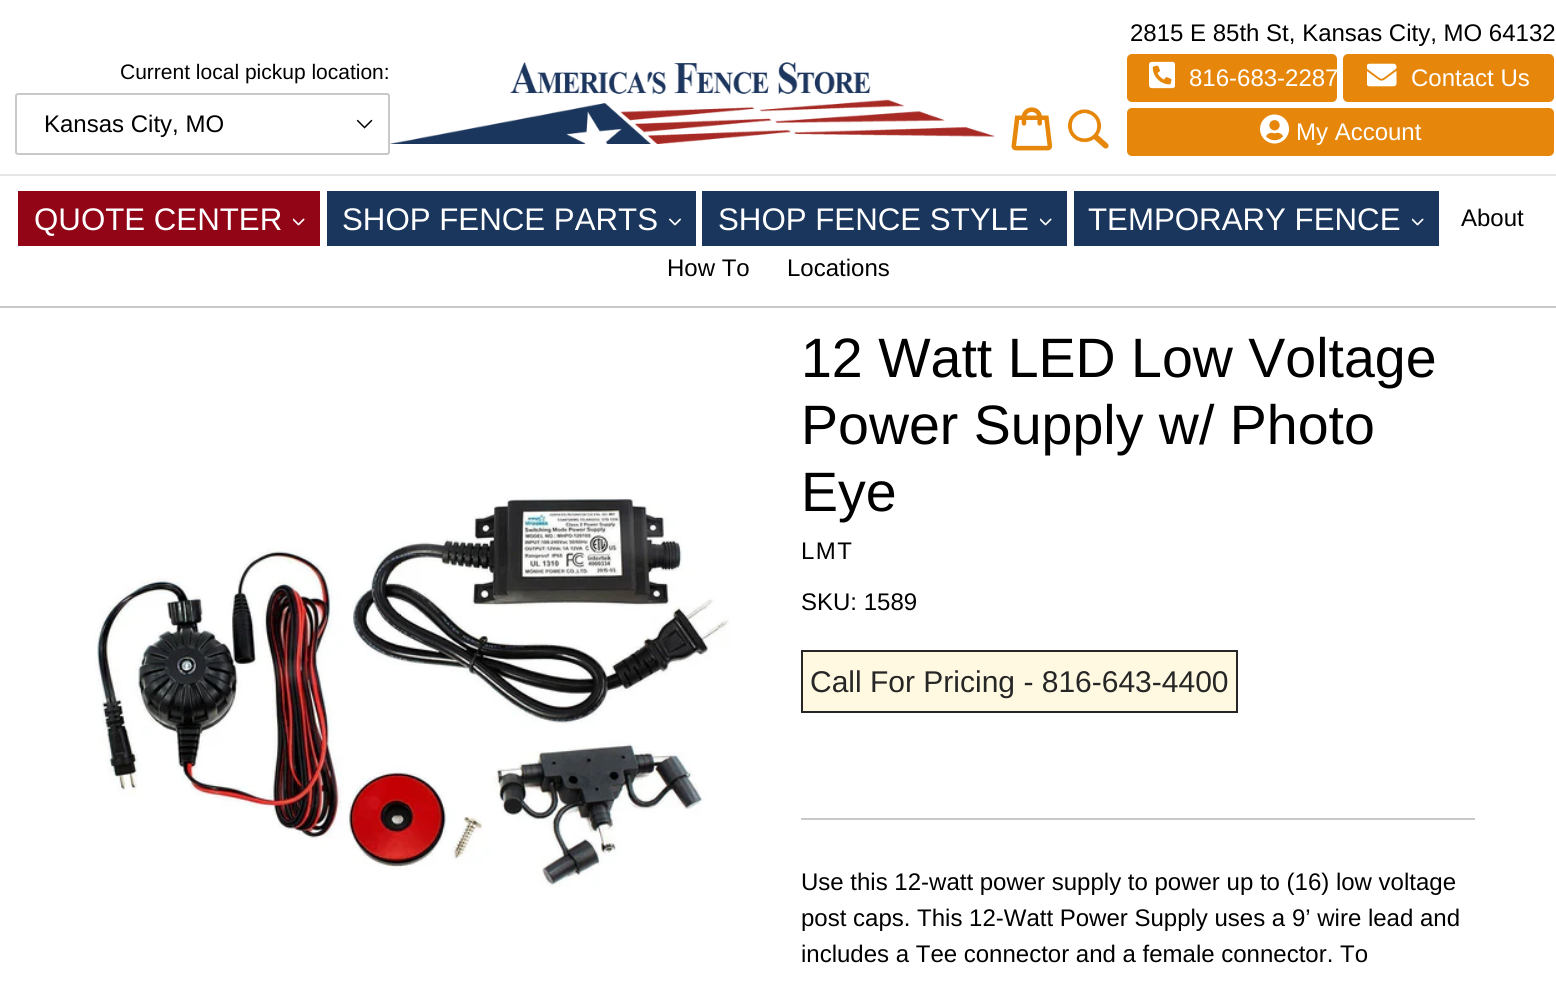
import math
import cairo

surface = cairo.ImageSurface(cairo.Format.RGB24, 1556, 986)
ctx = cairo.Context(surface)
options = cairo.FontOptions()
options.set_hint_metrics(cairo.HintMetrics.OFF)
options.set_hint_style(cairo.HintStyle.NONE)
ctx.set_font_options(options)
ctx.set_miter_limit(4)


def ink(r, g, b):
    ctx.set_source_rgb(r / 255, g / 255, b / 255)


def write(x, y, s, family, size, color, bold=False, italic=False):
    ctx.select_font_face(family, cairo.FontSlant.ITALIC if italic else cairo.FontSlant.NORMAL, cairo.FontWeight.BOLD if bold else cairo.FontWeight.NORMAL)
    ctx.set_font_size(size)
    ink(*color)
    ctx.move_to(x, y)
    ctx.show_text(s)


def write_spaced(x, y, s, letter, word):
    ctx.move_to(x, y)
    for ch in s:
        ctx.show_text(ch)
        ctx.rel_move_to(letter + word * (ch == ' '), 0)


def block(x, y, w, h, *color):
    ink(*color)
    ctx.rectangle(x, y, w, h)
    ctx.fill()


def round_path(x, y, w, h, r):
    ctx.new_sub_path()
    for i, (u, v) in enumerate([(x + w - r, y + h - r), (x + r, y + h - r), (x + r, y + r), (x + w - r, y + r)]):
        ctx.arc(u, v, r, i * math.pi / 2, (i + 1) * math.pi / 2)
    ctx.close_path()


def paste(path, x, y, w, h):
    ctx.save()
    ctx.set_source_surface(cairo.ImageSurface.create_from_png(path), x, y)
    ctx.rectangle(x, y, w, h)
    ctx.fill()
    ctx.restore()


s1 = dict(family="Liberation Sans", size=21, color=(0, 0, 0))
s2 = dict(family="Liberation Sans", size=24, color=(0, 0, 0))
s3 = dict(family="Liberation Sans", size=24, color=(255, 255, 255))
s4 = dict(family="Liberation Sans", size=31.25, color=(255, 255, 255))
s5 = dict(family="Liberation Sans", size=55.5, color=(0, 0, 0))
s6 = dict(family="Liberation Sans", size=30, color=(38, 38, 38))

ink(255, 255, 255)
ctx.paint()
block(0, 174, 1556, 2, 230, 230, 230)
write(120, 79, "Current local pickup location:", **s1)
paste("pic1.png", 356, 119, 17, 10)
round_path(16, 94, 373, 60, 2)
ink(201, 201, 201)
ctx.stroke()
write(44, 132, "Kansas City, MO", **s2)
paste("pic2.png", 390, 62, 605, 82)
paste("pic3.png", 1011, 107, 42, 44)
paste("pic4.png", 1068, 109, 41, 40)
write(1130, 41, "2815 E 85th St, Kansas City, MO 64132", **s2)
ink(230, 135, 11)
round_path(1127, 54, 210, 48, 5)
ctx.fill()
paste("pic5.png", 1149, 61, 26, 28)
write(1189, 86, "816-683-2287", **s3)
ink(230, 135, 11)
round_path(1343, 54, 211, 48, 5)
ctx.fill()
paste("pic6.png", 1367, 63, 30, 24)
write(1411, 86, "Contact Us", **s3)
ink(230, 135, 11)
round_path(1127, 108, 427, 48, 5)
ctx.fill()
paste("pic7.png", 1260, 114, 29, 30)
write(1296, 140, "My Account", **s3)
block(0, 306, 1556, 2, 201, 201, 201)
block(18, 191, 302, 55, 145, 5, 22)
write(34, 230, "QUOTE CENTER", **s4)
paste("pic8.png", 293, 218, 12, 8)
block(327, 191, 369, 55, 26, 54, 93)
write(342, 230, "SHOP FENCE PARTS", **s4)
paste("pic9.png", 669, 218, 12, 8)
block(702, 191, 365, 55, 26, 54, 93)
write(718, 230, "SHOP FENCE STYLE", **s4)
paste("pic10.png", 1040, 218, 12, 8)
block(1074, 191, 365, 55, 26, 54, 93)
write(1088, 230, "TEMPORARY FENCE", **s4)
paste("pic10.png", 1412, 218, 12, 8)
write(1461, 226, "About", **s2)
write(667, 276, "How To", **s2)
write(787, 276, "Locations", **s2)
paste("pic11.png", 95, 497, 636, 390)
write(801, 377, "12 Watt LED Low Voltage", **s5)
write(801, 444, "Power Supply w/ Photo", **s5)
write(801, 511, "Eye", **s5)
ctx.set_font_size(24)
write_spaced(801, 559, "LMT", 1.5, 0)
write(801, 610, "SKU: 1589", **s2)
ink(255, 249, 225)
ctx.rectangle(802, 651, 435, 61)
ctx.fill_preserve()
ink(38, 38, 38)
ctx.stroke()
write(810, 692, "Call For Pricing - 816-643-4400", **s6)
block(801, 818, 674, 2, 201, 201, 201)
write(801, 890, "Use this 12-watt power supply to power up to (16) low voltage", **s2)
write(801, 926, "post caps. This 12-Watt Power Supply uses a 9’ wire lead and", **s2)
write(801, 962, "includes a Tee connector and a female connector. To", **s2)
surface.write_to_png("screenshot.png")
